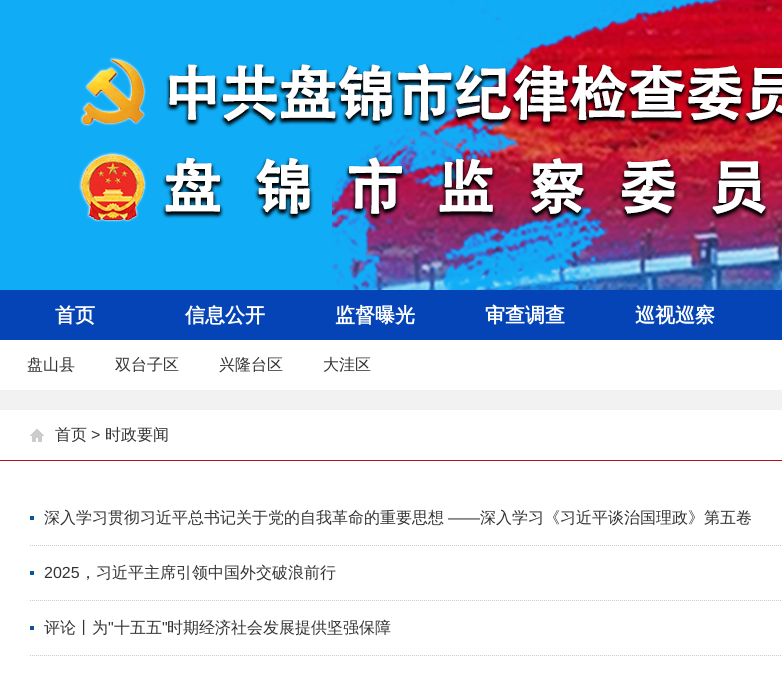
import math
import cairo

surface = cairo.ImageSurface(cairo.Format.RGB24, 782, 679)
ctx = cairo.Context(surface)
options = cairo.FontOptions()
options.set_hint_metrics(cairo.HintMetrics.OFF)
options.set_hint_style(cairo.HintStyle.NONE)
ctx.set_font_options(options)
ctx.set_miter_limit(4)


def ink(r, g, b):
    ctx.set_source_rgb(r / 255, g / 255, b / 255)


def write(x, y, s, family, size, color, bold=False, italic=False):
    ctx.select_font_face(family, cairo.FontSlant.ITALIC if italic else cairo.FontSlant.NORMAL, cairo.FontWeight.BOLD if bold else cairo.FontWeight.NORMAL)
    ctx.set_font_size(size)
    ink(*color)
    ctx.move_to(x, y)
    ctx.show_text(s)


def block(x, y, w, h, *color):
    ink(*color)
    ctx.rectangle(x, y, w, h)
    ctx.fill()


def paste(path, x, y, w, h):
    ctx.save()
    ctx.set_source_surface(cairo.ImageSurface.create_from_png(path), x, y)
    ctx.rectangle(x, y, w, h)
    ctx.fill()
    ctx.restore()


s1 = dict(family="WenQuanYi Zen Hei", size=20, color=(255, 255, 255), bold=True)
s2 = dict(family="WenQuanYi Zen Hei Medium", size=16, color=(51, 51, 51))
s3 = dict(family="Liberation Sans", size=16, color=(51, 51, 51))

ink(242, 242, 242)
ctx.paint()
paste("pic1.png", 0, 0, 782, 290)
block(0, 290, 782, 50, 5, 68, 183)
write(55, 322, "首页", **s1)
write(185, 322, "信息公开", **s1)
write(335, 322, "监督曝光", **s1)
write(485, 322, "审查调查", **s1)
write(635, 322, "巡视巡察", **s1)
block(0, 340, 782, 50, 255, 255, 255)
write(27, 370, "盘山县", **s2)
write(115, 370, "双台子区", **s2)
write(219, 370, "兴隆台区", **s2)
write(323, 370, "大洼区", **s2)
block(0, 410, 782, 269, 255, 255, 255)
paste("pic2.png", 30, 429, 14, 13)
block(0, 460, 782, 1, 184, 16, 16)
write(55, 440, "首页", **s2)
write(91, 440, ">", **s3)
write(105, 440, "时政要闻", **s2)
ctx.new_path()
ctx.move_to(30, 545.5)
ctx.line_to(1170, 545.5)
ink(204, 204, 204)
ctx.set_line_width(1)
ctx.set_dash([1, 1])
ctx.stroke()
block(30, 516, 4, 4, 11, 85, 159)
write(44, 523, "深入学习贯彻习近平总书记关于党的自我革命的重要思想", **s2)
write(448, 523, "——", **s3)
write(480, 523, "深入学习《习近平谈治国理政》第五卷", **s2)
ctx.new_path()
ctx.move_to(30, 600.5)
ctx.line_to(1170, 600.5)
ink(204, 204, 204)
ctx.stroke()
block(30, 571, 4, 4, 11, 85, 159)
write(44, 578, "2025", **s3)
write(80, 578, "，习近平主席引领中国外交破浪前行", **s2)
ctx.new_path()
ctx.move_to(30, 655.5)
ctx.line_to(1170, 655.5)
ink(204, 204, 204)
ctx.stroke()
block(30, 626, 4, 4, 11, 85, 159)
write(44, 633, "评论丨为", **s2)
write(108, 633, "\"", **s3)
write(114, 633, "十五五", **s2)
write(162, 633, "\"", **s3)
write(167, 633, "时期经济社会发展提供坚强保障", **s2)
surface.write_to_png("screenshot.png")
